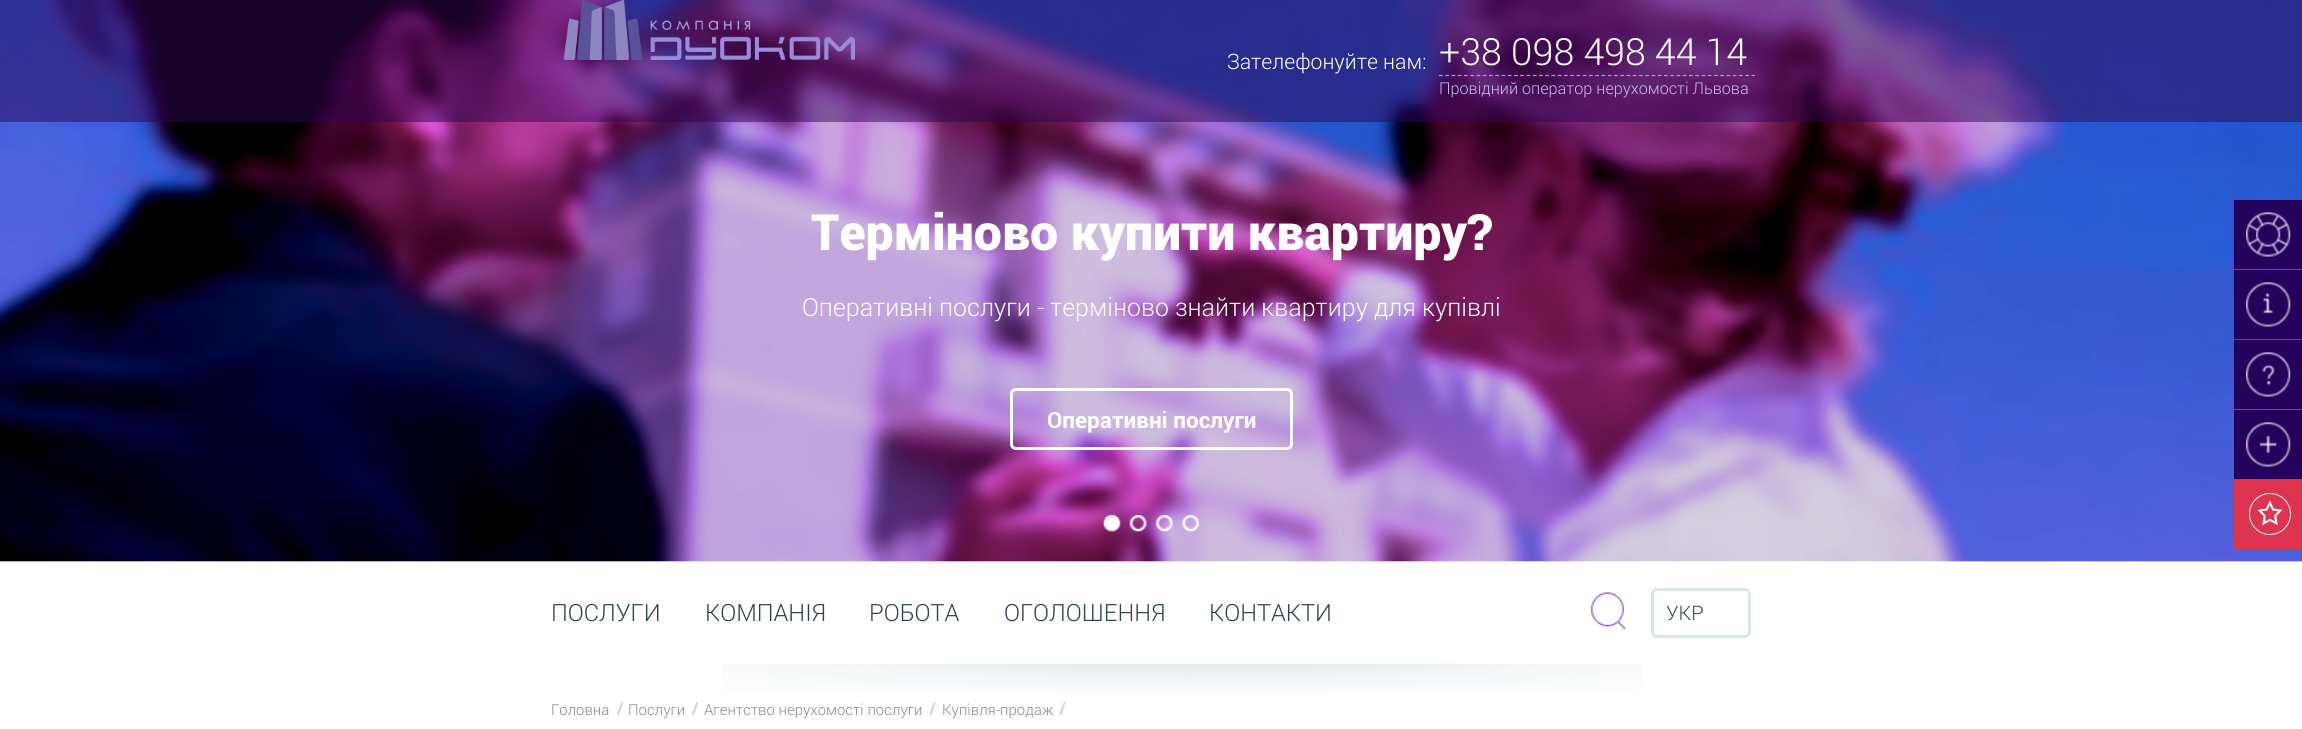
import math
import cairo

surface = cairo.ImageSurface(cairo.Format.RGB24, 2302, 729)
ctx = cairo.Context(surface)
options = cairo.FontOptions()
options.set_hint_metrics(cairo.HintMetrics.OFF)
options.set_hint_style(cairo.HintStyle.NONE)
ctx.set_font_options(options)
ctx.set_miter_limit(4)


def ink(r, g, b):
    ctx.set_source_rgb(r / 255, g / 255, b / 255)


def write(x, y, s, family, size, color, bold=False, italic=False):
    ctx.select_font_face(family, cairo.FontSlant.ITALIC if italic else cairo.FontSlant.NORMAL, cairo.FontWeight.BOLD if bold else cairo.FontWeight.NORMAL)
    ctx.set_font_size(size)
    ink(*color)
    ctx.move_to(x, y)
    ctx.show_text(s)


def block(x, y, w, h, *color):
    ink(*color)
    ctx.rectangle(x, y, w, h)
    ctx.fill()


def round_path(x, y, w, h, r):
    ctx.new_sub_path()
    for i, (u, v) in enumerate([(x + w - r, y + h - r), (x + r, y + h - r), (x + r, y + r), (x + w - r, y + r)]):
        ctx.arc(u, v, r, i * math.pi / 2, (i + 1) * math.pi / 2)
    ctx.close_path()


def paste(path, x, y, w, h):
    ctx.save()
    ctx.set_source_surface(cairo.ImageSurface.create_from_png(path), x, y)
    ctx.rectangle(x, y, w, h)
    ctx.fill()
    ctx.restore()


s1 = dict(family="Roboto Light", size=21.25, color=(255, 255, 255))
s2 = dict(family="Roboto Light", size=37.5, color=(255, 255, 255))
s3 = dict(family="Roboto Light", size=16.25, color=(206, 183, 249))
s4 = dict(family="Roboto Black", size=50, color=(255, 255, 255))
s5 = dict(family="Roboto Light", size=25, color=(255, 255, 255))
s6 = dict(family="roboto", size=22.5, color=(255, 255, 255), bold=True)
s7 = dict(family="Roboto Light", size=23.75, color=(44, 63, 80))
s8 = dict(family="Roboto Light", size=20, color=(52, 73, 94))
s9 = dict(family="Roboto Light", size=15, color=(131, 138, 148))

ink(255, 255, 255)
ctx.paint()
paste("pic2.png", 0, 0, 2302, 562)
ctx.set_source_rgba(0.18, 0.016, 0.322, 0.5)
ctx.rectangle(0, 0, 2302, 122)
ctx.fill()
paste("pic1.png", 563, 0, 292, 60)
write(1227, 69, "Зателефонуйте нам:", **s1)
ctx.new_path()
ctx.move_to(1439, 75.5)
ctx.line_to(1755, 75.5)
ink(177, 139, 249)
ctx.set_line_width(1.2)
ctx.set_dash([3.75, 2.5])
ctx.stroke()
write(1439, 65, "+38 098 498 44 14", **s2)
write(1439, 94, "Провідний оператор нерухомості Львова", **s3)
write(811, 250, "Терміново купити квартиру?", **s4)
write(802, 316, "Оперативні послуги - терміново знайти квартиру для купівлі", **s5)
round_path(1011.5, 389.5, 280, 59, 4.5)
ctx.set_line_width(3)
ctx.set_dash([])
ctx.stroke()
write(1047, 428, "Оперативні послуги", **s6)
paste("pic3.png", 1103, 515, 18, 17)
paste("pic4.png", 1129, 515, 18, 17)
paste("pic5.png", 1155, 515, 18, 17)
paste("pic6.png", 1181, 515, 18, 17)
block(2234, 200, 68, 69, 37, 1, 93)
paste("pic7.png", 2246, 212, 45, 45)
block(2234, 270, 68, 69, 37, 1, 93)
paste("pic8.png", 2246, 282, 45, 45)
block(2234, 340, 68, 69, 37, 1, 93)
paste("pic9.png", 2246, 352, 45, 45)
block(2234, 410, 68, 69, 37, 1, 93)
paste("pic10.png", 2246, 422, 45, 45)
block(2234, 480, 68, 69, 223, 52, 80)
ctx.arc(2270, 514, 20.5, 0, 2 * math.pi)
ink(255, 255, 255)
ctx.set_line_width(1)
ctx.stroke()
paste("pic11.png", 2257, 500, 26, 26)
paste("pic12.png", 722, 663, 920, 29)
write(551, 621, "ПОСЛУГИ", **s7)
write(705, 621, "КОМПАНІЯ", **s7)
block(870, 663, 90, 1, 255, 255, 255)
write(869, 621, "РОБОТА", **s7)
block(1004, 663, 161, 1, 255, 255, 255)
write(1004, 621, "ОГОЛОШЕННЯ", **s7)
block(1209, 663, 122, 1, 255, 255, 255)
write(1209, 621, "КОНТАКТИ", **s7)
paste("pic13.png", 1591, 592, 36, 38)
round_path(1652.5, 589.5, 97, 47, 4.5)
ink(215, 232, 236)
ctx.set_line_width(3)
ctx.stroke()
write(1666, 620, "УКР", **s8)
paste("pic14.png", 616, 702, 8, 14)
write(551, 715, "Головна", **s9)
paste("pic14.png", 691, 702, 8, 14)
write(628, 715, "Послуги", **s9)
paste("pic15.png", 929, 702, 7, 14)
write(704, 715, "Агентство нерухомості послуги", **s9)
paste("pic15.png", 1059, 702, 7, 14)
write(942, 715, "Купівля-продаж", **s9)
surface.write_to_png("screenshot.png")
